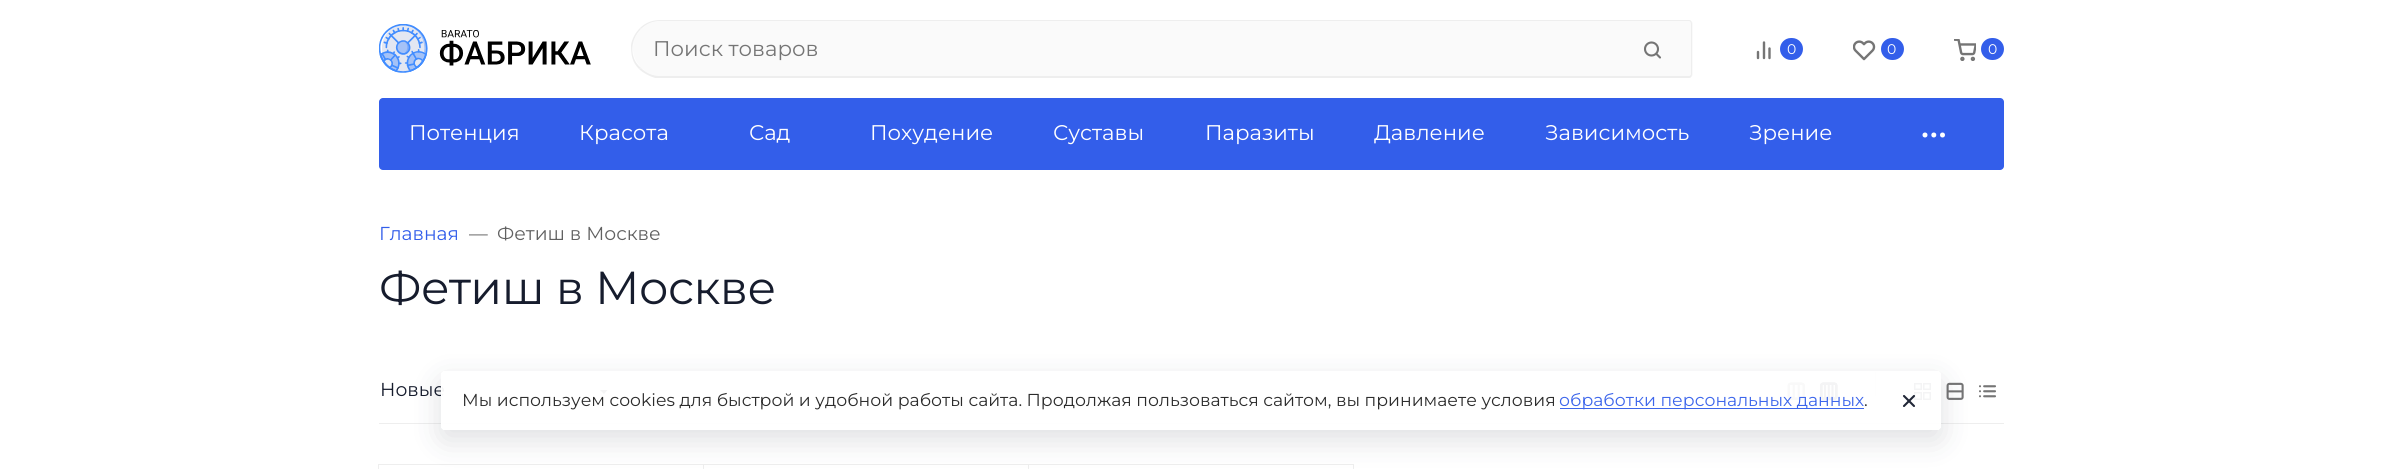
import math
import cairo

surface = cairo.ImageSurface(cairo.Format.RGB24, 2382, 469)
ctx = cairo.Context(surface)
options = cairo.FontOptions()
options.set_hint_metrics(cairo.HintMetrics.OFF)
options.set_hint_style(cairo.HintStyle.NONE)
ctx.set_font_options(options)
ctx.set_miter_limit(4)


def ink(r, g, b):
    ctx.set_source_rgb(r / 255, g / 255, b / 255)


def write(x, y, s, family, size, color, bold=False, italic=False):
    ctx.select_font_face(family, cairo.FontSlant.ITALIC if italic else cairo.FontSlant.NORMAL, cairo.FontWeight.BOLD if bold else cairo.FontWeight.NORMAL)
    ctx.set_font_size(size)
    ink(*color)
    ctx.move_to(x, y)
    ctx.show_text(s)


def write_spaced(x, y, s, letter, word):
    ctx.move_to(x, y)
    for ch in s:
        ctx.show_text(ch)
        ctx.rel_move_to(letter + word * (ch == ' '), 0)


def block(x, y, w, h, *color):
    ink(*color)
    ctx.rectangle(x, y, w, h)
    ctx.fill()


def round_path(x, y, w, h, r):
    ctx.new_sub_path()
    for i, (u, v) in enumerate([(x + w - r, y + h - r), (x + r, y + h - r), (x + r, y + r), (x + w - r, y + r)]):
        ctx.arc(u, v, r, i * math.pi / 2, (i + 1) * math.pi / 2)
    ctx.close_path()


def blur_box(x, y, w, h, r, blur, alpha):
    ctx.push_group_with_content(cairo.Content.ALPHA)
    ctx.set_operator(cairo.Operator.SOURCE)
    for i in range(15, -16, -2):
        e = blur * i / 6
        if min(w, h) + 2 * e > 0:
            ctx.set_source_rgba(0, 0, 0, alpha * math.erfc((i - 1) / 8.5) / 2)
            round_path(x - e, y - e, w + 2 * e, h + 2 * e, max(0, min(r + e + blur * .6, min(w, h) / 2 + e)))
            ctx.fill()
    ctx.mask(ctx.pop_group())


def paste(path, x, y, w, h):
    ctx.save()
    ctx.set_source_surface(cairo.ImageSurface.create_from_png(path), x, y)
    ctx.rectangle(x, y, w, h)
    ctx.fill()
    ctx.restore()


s1 = dict(family="Montserrat Thin", size=21.25, color=(117, 117, 117))
s2 = dict(family="Montserrat Thin", size=14, color=(255, 255, 255))
s3 = dict(family="Montserrat Thin", size=21.25, color=(255, 255, 255))
s4 = dict(family="Montserrat Thin", size=18.75, color=(51, 94, 234))
s5 = dict(family="Montserrat Thin", size=18.75, color=(97, 97, 97))
s6 = dict(family="Montserrat Thin", size=18.75, color=(22, 28, 45))
s7 = dict(family="Montserrat Thin", size=17.3, color=(44, 44, 44))
s8 = dict(family="Montserrat Thin", size=17.3, color=(61, 102, 235))

ink(255, 255, 255)
ctx.paint()
paste("pic1.png", 379, 24, 212, 49)
ink(250, 250, 250)
ctx.new_path()
ctx.move_to(660.5, 21)
ctx.line_to(1624, 21)
ctx.line_to(1624, 76)
ctx.line_to(660.5, 76)
ctx.curve_to(645.5, 76, 633, 63.5, 633, 48.5)
ctx.curve_to(633, 33.5, 645.5, 21, 660.5, 21)
ctx.close_path()
ctx.fill()
ctx.new_path()
ctx.move_to(1624, 20)
ctx.line_to(1689, 20)
ctx.curve_to(1691, 20, 1693, 22, 1693, 24)
ctx.line_to(1693, 74)
ctx.curve_to(1693, 76, 1691, 78, 1689, 78)
ctx.line_to(1624, 78)
ctx.close_path()
ctx.fill()
ink(238, 238, 238)
ctx.set_fill_rule(cairo.FillRule.EVEN_ODD)
ctx.new_path()
ctx.move_to(1624, 20)
ctx.line_to(1689, 20)
ctx.curve_to(1691, 20, 1692, 22, 1692, 24)
ctx.line_to(1692, 74)
ctx.curve_to(1692, 76, 1691, 78, 1689, 78)
ctx.line_to(1624, 78)
ctx.close_path()
ctx.move_to(1624, 21)
ctx.line_to(1689, 21)
ctx.curve_to(1690, 21, 1691, 22, 1691, 24)
ctx.line_to(1691, 74)
ctx.curve_to(1691, 75, 1690, 76, 1689, 76)
ctx.line_to(1624, 76)
ctx.close_path()
ctx.fill()
ctx.set_fill_rule(cairo.FillRule.WINDING)
ctx.new_path()
ctx.move_to(660, 20)
ctx.curve_to(652, 20, 645, 23, 640, 28)
ctx.line_to(641, 29)
ctx.curve_to(646, 24, 653, 21, 660, 21)
ctx.line_to(1624, 21)
ctx.line_to(1625, 20)
ctx.close_path()
ctx.fill()
ctx.new_path()
ctx.move_to(1625, 78)
ctx.line_to(655, 78)
ctx.curve_to(649, 76, 643, 73, 639, 69)
ctx.line_to(641, 68)
ctx.curve_to(646, 73, 653, 76, 660, 76)
ctx.line_to(1624, 76)
ctx.close_path()
ctx.fill()
ctx.new_path()
ctx.move_to(631, 45)
ctx.curve_to(632, 39, 635, 33, 640, 28)
ctx.line_to(641, 29)
ctx.curve_to(630, 40, 629, 58, 641, 68)
ctx.line_to(639, 69)
ctx.curve_to(632, 62, 631, 55, 631, 45)
ctx.close_path()
ctx.fill()
write(653, 56, "Поиск товаров", **s1)
ctx.new_path()
ctx.arc(1651.5, 49, 6.5, 0, 2 * math.pi)
ctx.set_line_width(2.1)
ctx.stroke()
ctx.new_path()
ctx.move_to(1660, 57.5)
ctx.line_to(1656.5, 54)
ctx.set_line_cap(cairo.LineCap.ROUND)
ctx.set_line_join(cairo.LineJoin.ROUND)
ctx.stroke()
ctx.new_path()
ctx.move_to(1769.5, 58)
ctx.line_to(1769.5, 48.5)
ctx.move_to(1764, 58)
ctx.line_to(1764, 42.5)
ctx.move_to(1758, 58)
ctx.line_to(1758, 52)
ctx.set_line_width(2.4)
ctx.stroke()
ink(51, 94, 234)
round_path(1780, 38, 23, 22, 11)
ctx.fill()
write(1787, 54, "0", **s2)
paste("pic2.png", 1853, 40, 23, 21)
ink(51, 94, 234)
round_path(1881, 38, 23, 22, 11)
ctx.fill()
write(1887, 54, "0", **s2)
paste("pic3.png", 1954, 39, 22, 22)
ink(51, 94, 234)
round_path(1981, 38, 23, 22, 11)
ctx.fill()
write(1988, 54, "0", **s2)
ink(51, 94, 234)
round_path(379, 98, 1625, 72, 4)
ctx.fill()
write(409, 140, "Потенция", **s3)
write(579, 140, "Красота", **s3)
write(749, 140, "Сад", **s3)
write(870, 140, "Похудение", **s3)
write(1053, 140, "Суставы", **s3)
write(1205, 140, "Паразиты", **s3)
write(1374, 140, "Давление", **s3)
write(1545, 140, "Зависимость", **s3)
write(1749, 140, "Зрение", **s3)
ctx.new_path()
ctx.arc(1925, 135, 2.5, 0, 2 * math.pi)
ctx.fill()
ctx.arc(1933.8, 135, 2.5, 0, 2 * math.pi)
ctx.fill()
ctx.arc(1942.5, 135, 2.5, 0, 2 * math.pi)
ctx.fill()
write(379, 240, "Главная", **s4)
write(469, 240, "—", **s5)
write(497, 240, "Фетиш в Москве", **s5)
ctx.set_font_size(46.25)
ink(22, 28, 45)
write_spaced(379, 304, "Фетиш в Москве", -0.5, 0)
block(379, 423, 1625, 1, 238, 238, 238)
write(380, 396, "Новые", **s6)
ctx.new_path()
ctx.move_to(600, 390)
ctx.line_to(607.5, 390)
ctx.line_to(604, 394)
ctx.close_path()
ctx.fill()
paste("pic4.png", 1787, 382, 18, 18)
paste("pic5.png", 1820, 382, 18, 18)
block(1875, 371, 1, 25, 224, 224, 224)
paste("pic6.png", 1914, 383, 17, 17)
paste("pic7.png", 1946, 382, 18, 18)
paste("pic8.png", 1979, 385, 17, 13)
ctx.rectangle(378.5, 464.5, 325, 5)
ink(238, 238, 238)
ctx.set_line_width(1)
ctx.set_line_cap(cairo.LineCap.BUTT)
ctx.set_line_join(cairo.LineJoin.MITER)
ctx.stroke()
ctx.rectangle(703.5, 464.5, 325, 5)
ctx.stroke()
ctx.rectangle(1028.5, 464.5, 325, 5)
ctx.stroke()
ctx.save()
ctx.set_fill_rule(cairo.FillRule.EVEN_ODD)
ctx.new_path()
ctx.move_to(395, 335)
ctx.line_to(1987, 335)
ctx.line_to(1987, 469)
ctx.line_to(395, 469)
ctx.close_path()
ctx.move_to(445, 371)
ctx.line_to(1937, 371)
ctx.curve_to(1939, 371, 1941, 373, 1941, 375)
ctx.line_to(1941, 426)
ctx.curve_to(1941, 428, 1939, 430, 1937, 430)
ctx.line_to(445, 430)
ctx.curve_to(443, 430, 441, 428, 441, 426)
ctx.line_to(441, 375)
ctx.curve_to(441, 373, 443, 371, 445, 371)
ctx.close_path()
ctx.clip()
ink(22, 28, 45)
blur_box(441, 381, 1500, 59, 4, 15, 0.14)
ctx.restore()
ctx.set_source_rgba(1, 1, 1, 0.95)
round_path(441, 371, 1500, 59, 4)
ctx.fill()
round_path(441.5, 371.5, 1499, 58, 3.5)
ctx.stroke()
write(462, 406, "Мы используем cookies для быстрой и удобной работы сайта. Продолжая пользоваться сайтом, вы принимаете условия", **s7)
block(1560, 408, 304, 1, 61, 102, 235)
write(1559, 406, "обработки персональных данных", **s8)
write(1864, 406, ".", **s7)
ctx.new_path()
ctx.move_to(1914, 396)
ctx.line_to(1904, 406)
ctx.set_source_rgba(0.086, 0.11, 0.176, 0.95)
ctx.set_line_width(2.1)
ctx.set_line_cap(cairo.LineCap.ROUND)
ctx.set_line_join(cairo.LineJoin.ROUND)
ctx.stroke()
ctx.new_path()
ctx.move_to(1904, 396)
ctx.line_to(1914, 406)
ink(34, 39, 56)
ctx.stroke()
surface.write_to_png("screenshot.png")
